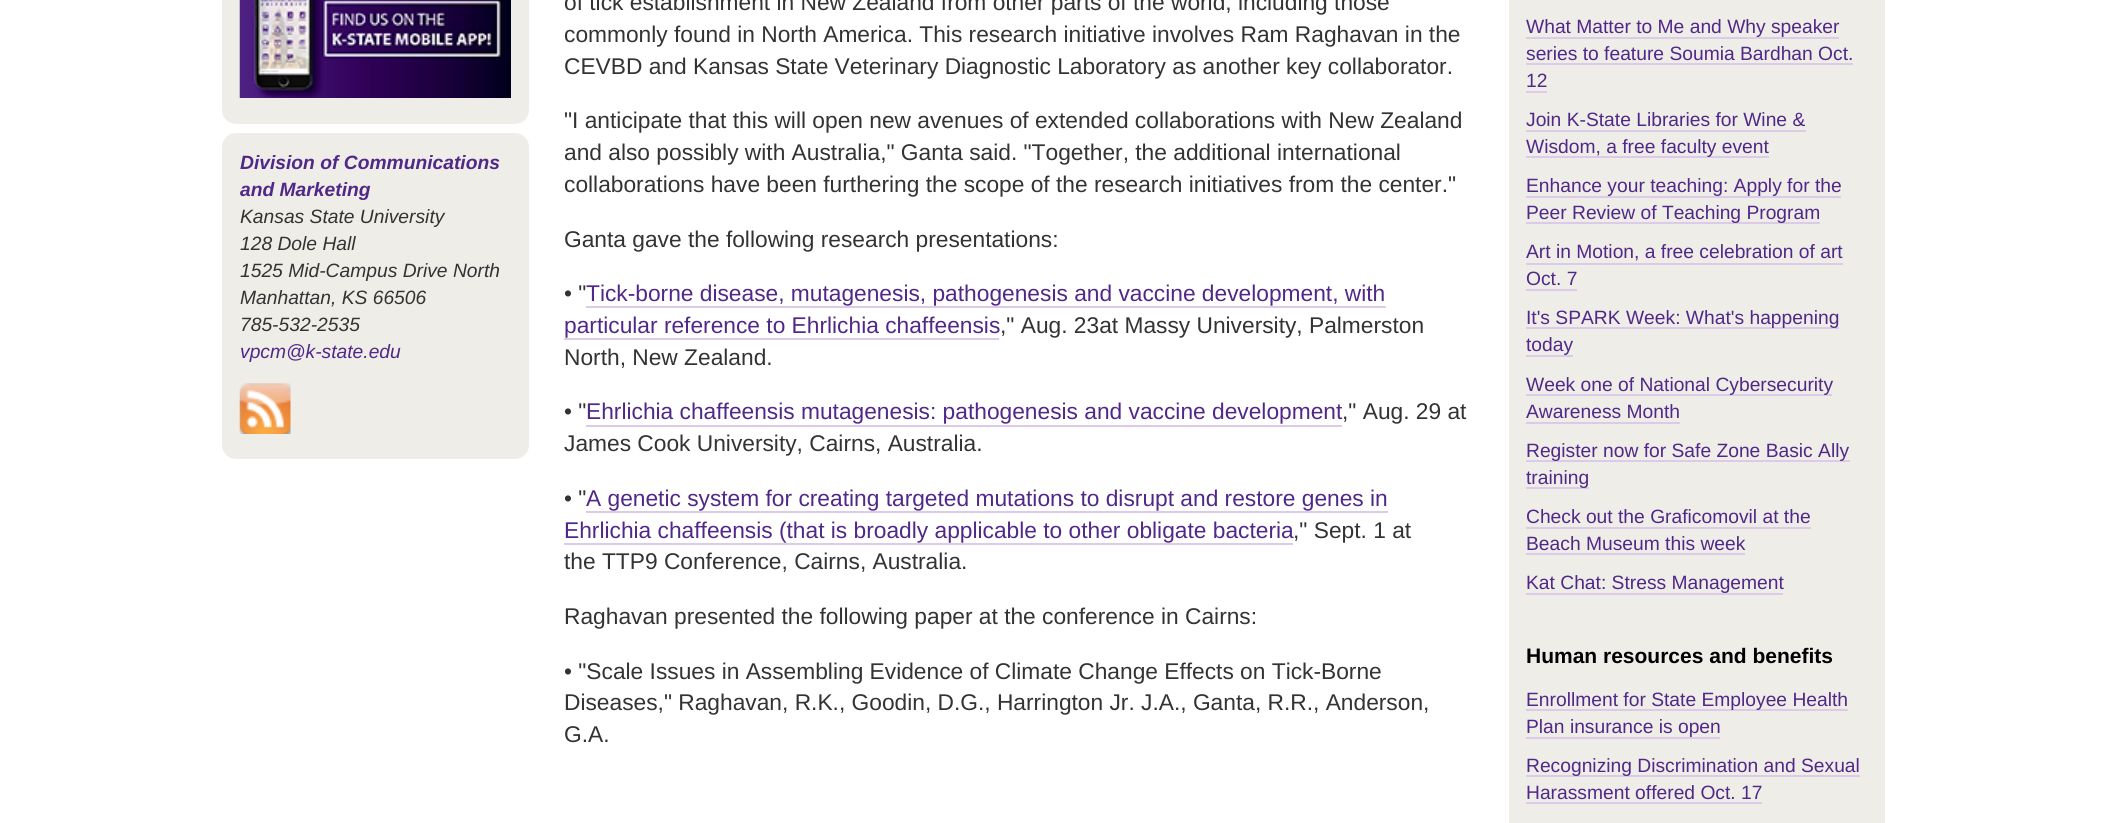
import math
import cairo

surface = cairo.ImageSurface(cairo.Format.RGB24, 2107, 823)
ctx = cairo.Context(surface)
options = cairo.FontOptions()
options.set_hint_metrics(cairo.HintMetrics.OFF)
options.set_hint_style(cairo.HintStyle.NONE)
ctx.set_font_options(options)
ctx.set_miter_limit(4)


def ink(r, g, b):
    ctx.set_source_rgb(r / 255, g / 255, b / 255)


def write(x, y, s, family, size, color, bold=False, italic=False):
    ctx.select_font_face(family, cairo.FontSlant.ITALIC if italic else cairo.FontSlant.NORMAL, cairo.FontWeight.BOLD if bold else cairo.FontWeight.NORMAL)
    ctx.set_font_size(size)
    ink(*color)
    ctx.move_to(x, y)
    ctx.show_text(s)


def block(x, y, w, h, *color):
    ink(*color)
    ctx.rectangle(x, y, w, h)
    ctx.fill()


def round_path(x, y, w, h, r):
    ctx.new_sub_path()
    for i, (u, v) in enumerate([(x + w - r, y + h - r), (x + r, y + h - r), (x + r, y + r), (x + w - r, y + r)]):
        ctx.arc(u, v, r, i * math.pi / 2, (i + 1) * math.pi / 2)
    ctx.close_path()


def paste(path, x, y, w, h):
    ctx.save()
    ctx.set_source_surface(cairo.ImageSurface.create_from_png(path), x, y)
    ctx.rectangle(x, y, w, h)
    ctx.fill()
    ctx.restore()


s1 = dict(family="Liberation Sans", size=19.25, color=(81, 40, 136), bold=True, italic=True)
s2 = dict(family="Liberation Sans", size=19.25, color=(51, 51, 51), italic=True)
s3 = dict(family="Liberation Sans", size=19.25, color=(81, 40, 136), italic=True)
s4 = dict(family="Liberation Sans", size=22.75, color=(51, 51, 51))
s5 = dict(family="Liberation Sans", size=22.75, color=(81, 40, 136))
s6 = dict(family="Liberation Sans", size=19.25, color=(81, 40, 136))
s7 = dict(family="Liberation Sans", size=21, color=(0, 0, 0), bold=True)

ink(255, 255, 255)
ctx.paint()
ink(238, 237, 232)
round_path(222, -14, 307, 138, 14)
ctx.fill()
paste("pic1.png", 239, 0, 272, 98)
round_path(222, 133, 307, 326, 14)
ctx.fill()
write(240, 169, "Division of Communications", **s1)
write(240, 196, "and Marketing", **s1)
write(240, 223, "Kansas State University", **s2)
write(240, 250, "128 Dole Hall", **s2)
write(240, 277, "1525 Mid-Campus Drive North", **s2)
write(240, 304, "Manhattan, KS 66506", **s2)
write(240, 331, "785-532-2535", **s2)
write(240, 358, "vpcm@k-state.edu", **s3)
paste("pic2.png", 239, 383, 52, 51)
write(564, 10, "of tick establishment in New Zealand from other parts of the world, including those", **s4)
write(564, 42, "commonly found in North America. This research initiative involves Ram Raghavan in the", **s4)
write(564, 74, "CEVBD and Kansas State Veterinary Diagnostic Laboratory as another key collaborator.", **s4)
write(564, 128, "\"I anticipate that this will open new avenues of extended collaborations with New Zealand", **s4)
write(564, 160, "and also possibly with Australia,\" Ganta said. \"Together, the additional international", **s4)
write(564, 192, "collaborations have been furthering the scope of the research initiatives from the center.\"", **s4)
write(564, 247, "Ganta gave the following research presentations:", **s4)
write(564, 301, "• \"", **s4)
write(586, 301, "Tick-borne disease, mutagenesis, pathogenesis and vaccine development, with", **s5)
block(586, 306, 800, 2, 221, 201, 232)
write(564, 333, "particular reference to Ehrlichia chaffeensis", **s5)
block(564, 338, 435, 2, 221, 201, 232)
write(1000, 333, ",\" Aug. 23at Massy University, Palmerston", **s4)
write(564, 365, "North, New Zealand.", **s4)
write(564, 419, "• \"", **s4)
write(586, 419, "Ehrlichia chaffeensis mutagenesis: pathogenesis and vaccine development", **s5)
block(586, 425, 756, 2, 221, 201, 232)
write(1342, 419, ",\" Aug. 29 at", **s4)
write(564, 451, "James Cook University, Cairns, Australia.", **s4)
write(564, 506, "• \"", **s4)
write(586, 506, "A genetic system for creating targeted mutations to disrupt and restore genes in", **s5)
block(586, 511, 802, 2, 221, 201, 232)
write(564, 538, "Ehrlichia chaffeensis (that is broadly applicable to other obligate bacteria", **s5)
block(564, 543, 729, 2, 221, 201, 232)
write(1293, 538, ",\" Sept. 1 at", **s4)
write(564, 569, "the TTP9 Conference, Cairns, Australia.", **s4)
write(564, 624, "Raghavan presented the following paper at the conference in Cairns:", **s4)
write(564, 679, "• \"Scale Issues in Assembling Evidence of Climate Change Effects on Tick-Borne", **s4)
write(564, 710, "Diseases,\" Raghavan, R.K., Goodin, D.G., Harrington Jr. J.A., Ganta, R.R., Anderson,", **s4)
write(564, 742, "G.A.", **s4)
block(1509, 0, 376, 823, 238, 237, 232)
write(1526, 33, "What Matter to Me and Why speaker", **s6)
block(1526, 37, 313, 2, 221, 201, 232)
write(1526, 60, "series to feature Soumia Bardhan Oct.", **s6)
block(1526, 63, 327, 2, 221, 201, 232)
write(1526, 87, "12", **s6)
block(1526, 91, 21, 2, 221, 201, 232)
write(1526, 126, "Join K-State Libraries for Wine &", **s6)
block(1526, 130, 280, 2, 221, 201, 232)
block(1526, 156, 243, 2, 221, 201, 232)
write(1526, 153, "Wisdom, a free faculty event", **s6)
write(1526, 192, "Enhance your teaching: Apply for the", **s6)
block(1526, 196, 315, 2, 221, 201, 232)
block(1526, 222, 294, 2, 221, 201, 232)
write(1526, 219, "Peer Review of Teaching Program", **s6)
write(1526, 258, "Art in Motion, a free celebration of art", **s6)
block(1526, 263, 317, 2, 221, 201, 232)
write(1526, 285, "Oct. 7", **s6)
block(1526, 289, 51, 2, 221, 201, 232)
block(1526, 327, 313, 2, 221, 201, 232)
write(1526, 324, "It's SPARK Week: What's happening", **s6)
write(1526, 351, "today", **s6)
block(1526, 355, 47, 2, 221, 201, 232)
block(1526, 394, 306, 2, 221, 201, 232)
write(1526, 391, "Week one of National Cybersecurity", **s6)
write(1526, 418, "Awareness Month", **s6)
block(1526, 422, 154, 2, 221, 201, 232)
block(1526, 460, 324, 2, 221, 201, 232)
write(1526, 457, "Register now for Safe Zone Basic Ally", **s6)
block(1526, 487, 63, 2, 221, 201, 232)
write(1526, 484, "training", **s6)
write(1526, 523, "Check out the Graficomovil at the", **s6)
block(1526, 527, 285, 2, 221, 201, 232)
write(1526, 550, "Beach Museum this week", **s6)
block(1526, 553, 219, 2, 221, 201, 232)
write(1526, 589, "Kat Chat: Stress Management", **s6)
block(1526, 593, 257, 2, 221, 201, 232)
write(1526, 663, "Human resources and benefits", **s7)
block(1526, 709, 322, 2, 221, 201, 232)
write(1526, 706, "Enrollment for State Employee Health", **s6)
write(1526, 733, "Plan insurance is open", **s6)
block(1526, 737, 194, 2, 221, 201, 232)
block(1526, 775, 334, 2, 221, 201, 232)
write(1526, 772, "Recognizing Discrimination and Sexual", **s6)
write(1526, 799, "Harassment offered Oct. 17", **s6)
block(1526, 802, 236, 2, 221, 201, 232)
surface.write_to_png("screenshot.png")
